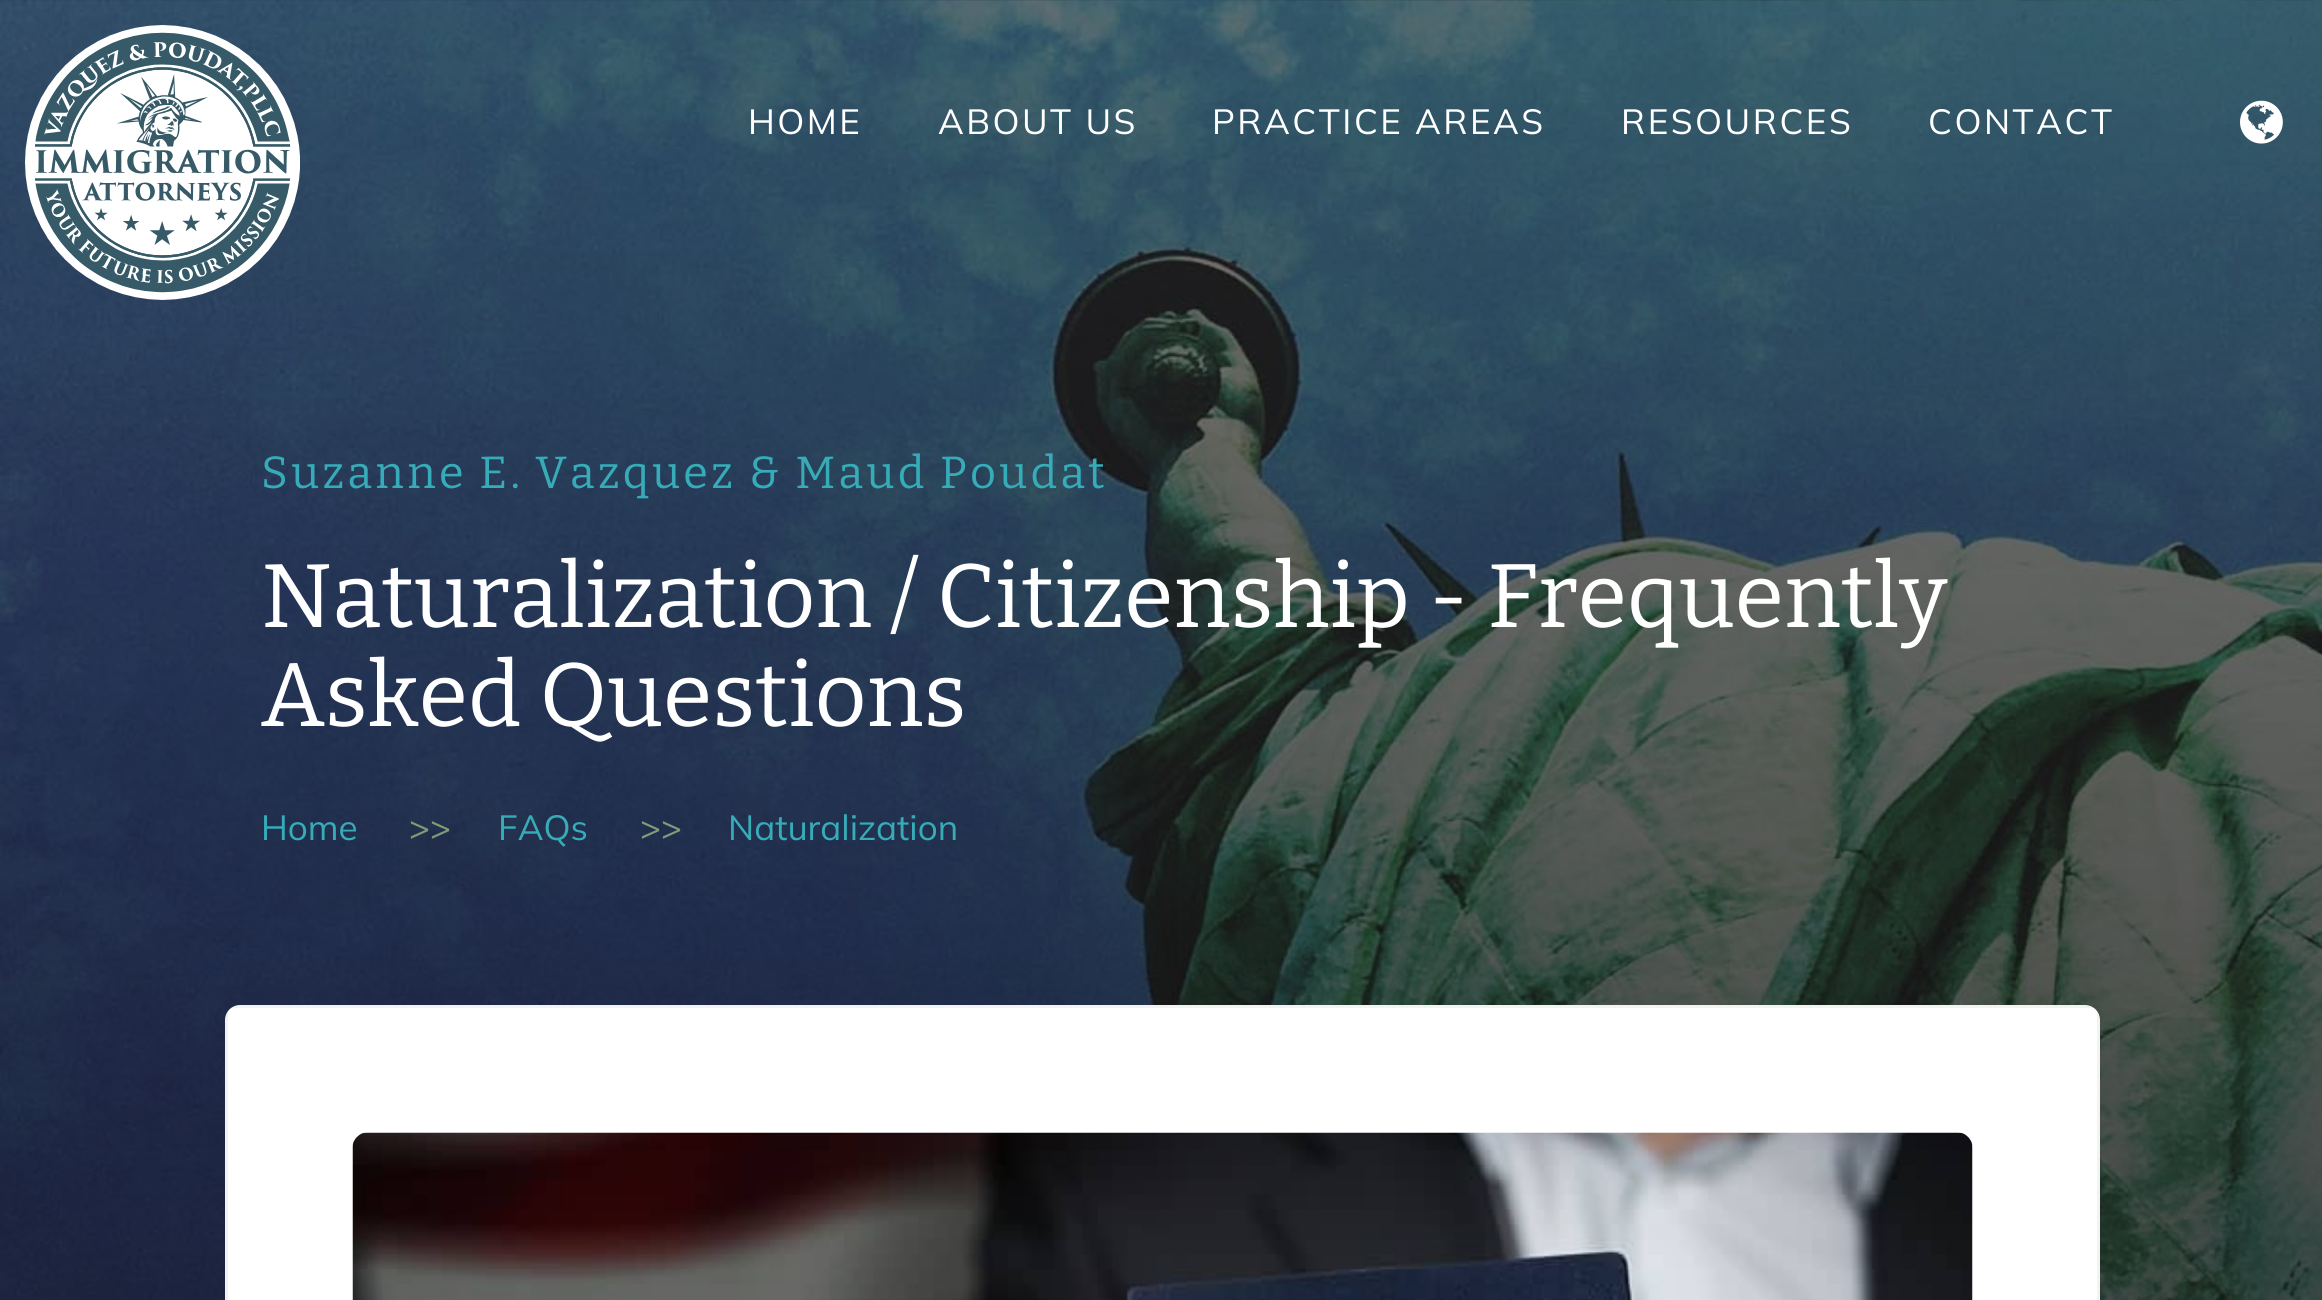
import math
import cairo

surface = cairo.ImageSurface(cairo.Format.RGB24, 2322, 1300)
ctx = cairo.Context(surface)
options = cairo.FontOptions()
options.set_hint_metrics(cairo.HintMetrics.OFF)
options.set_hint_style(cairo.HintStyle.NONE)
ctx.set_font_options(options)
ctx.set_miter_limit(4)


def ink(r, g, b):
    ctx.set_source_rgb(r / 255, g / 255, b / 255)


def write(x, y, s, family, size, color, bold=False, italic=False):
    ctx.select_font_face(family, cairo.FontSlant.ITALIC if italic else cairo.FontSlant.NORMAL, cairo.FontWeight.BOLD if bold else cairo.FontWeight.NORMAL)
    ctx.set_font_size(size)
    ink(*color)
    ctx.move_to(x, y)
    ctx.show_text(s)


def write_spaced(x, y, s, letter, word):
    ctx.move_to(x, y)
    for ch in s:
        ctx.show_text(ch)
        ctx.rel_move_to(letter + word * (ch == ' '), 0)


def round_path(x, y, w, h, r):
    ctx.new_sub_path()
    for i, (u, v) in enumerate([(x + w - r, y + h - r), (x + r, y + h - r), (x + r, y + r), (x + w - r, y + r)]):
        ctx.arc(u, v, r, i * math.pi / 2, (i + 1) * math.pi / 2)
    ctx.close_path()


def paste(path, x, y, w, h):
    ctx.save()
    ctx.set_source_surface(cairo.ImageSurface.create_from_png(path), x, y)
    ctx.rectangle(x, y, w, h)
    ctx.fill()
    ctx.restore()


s1 = dict(family="Bitter", size=90, color=(255, 255, 255))
s2 = dict(family="Mulish", size=35, color=(55, 172, 185))
s3 = dict(family="Mulish", size=35, color=(127, 156, 119))

ink(255, 255, 255)
ctx.paint()
paste("pic3.png", 0, 0, 2322, 1300)
paste("pic1.png", 25, 25, 275, 275)
ctx.select_font_face("Mulish")
ctx.set_font_size(35)
ink(255, 255, 255)
write_spaced(748, 134, "HOME", 2.5, 0)
write_spaced(938, 134, "ABOUT US", 2.5, 0)
write_spaced(1212, 134, "PRACTICE AREAS", 2.5, 0)
write_spaced(1621, 134, "RESOURCES", 2.5, 0)
write_spaced(1928, 134, "CONTACT", 2.5, 0)
paste("pic2.png", 2240, 100, 43, 44)
ctx.select_font_face("Bitter")
ctx.set_font_size(45)
ink(55, 172, 185)
write_spaced(261, 488, "Suzanne E. Vazquez & Maud Poudat", 3.3, 0)
write(261, 627, "Naturalization / Citizenship - Frequently", **s1)
write(261, 726, "Asked Questions", **s1)
write(261, 840, "Home", **s2)
write(409, 840, ">>", **s3)
write(498, 840, "FAQs", **s2)
write(640, 840, ">>", **s3)
write(728, 840, "Naturalization", **s2)
ink(255, 255, 255)
round_path(225, 1005, 1875, 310, 15)
ctx.fill()
ctx.rectangle(226.5, 1006.5, 1872, 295)
ctx.set_source_rgba(0, 0, 0, 0.05)
ctx.set_line_width(3)
ctx.stroke()
paste("pic4.png", 352, 1132, 1621, 168)
surface.write_to_png("screenshot.png")
